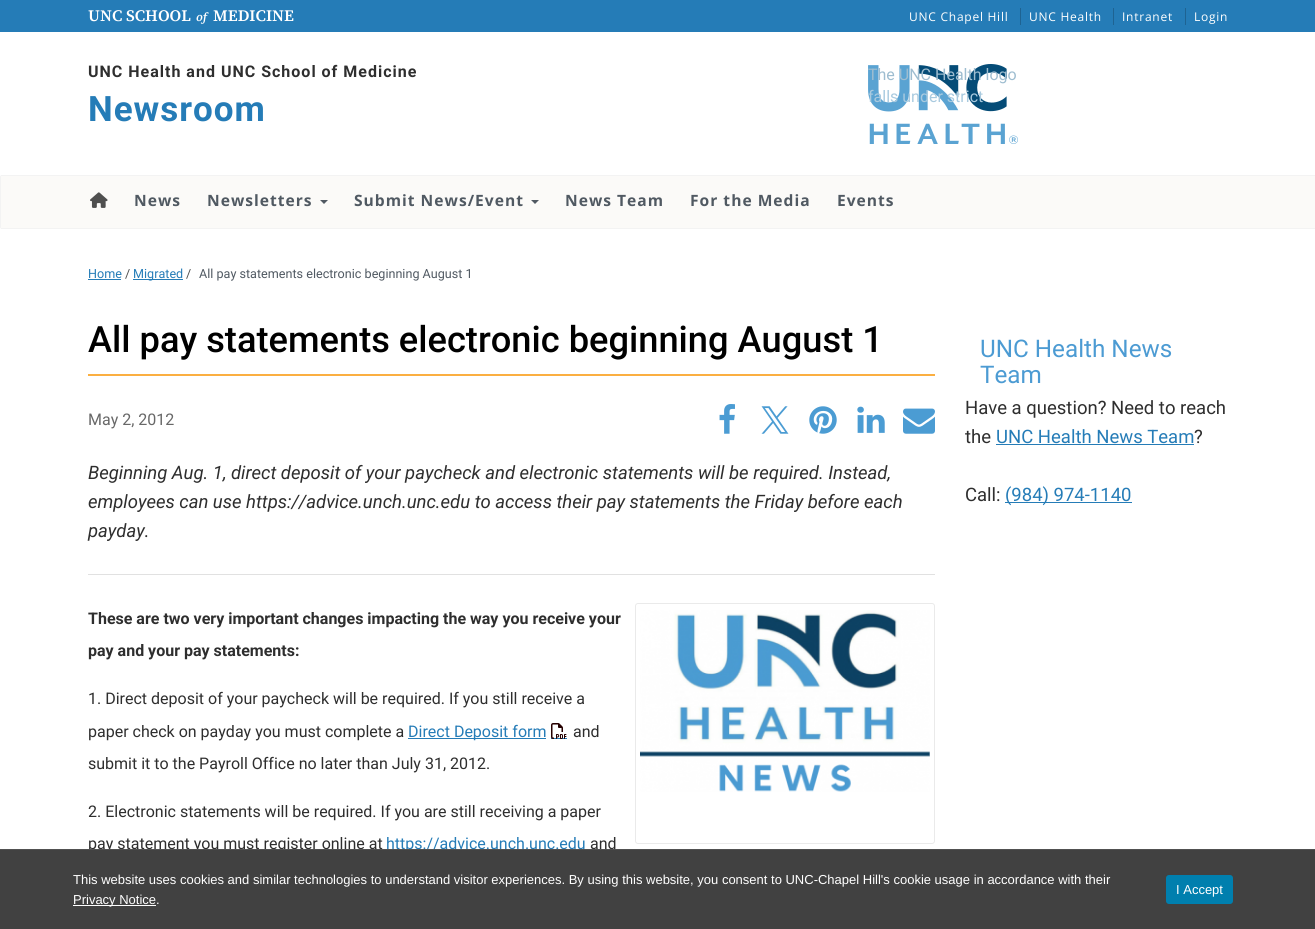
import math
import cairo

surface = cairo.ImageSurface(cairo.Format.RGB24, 1315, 929)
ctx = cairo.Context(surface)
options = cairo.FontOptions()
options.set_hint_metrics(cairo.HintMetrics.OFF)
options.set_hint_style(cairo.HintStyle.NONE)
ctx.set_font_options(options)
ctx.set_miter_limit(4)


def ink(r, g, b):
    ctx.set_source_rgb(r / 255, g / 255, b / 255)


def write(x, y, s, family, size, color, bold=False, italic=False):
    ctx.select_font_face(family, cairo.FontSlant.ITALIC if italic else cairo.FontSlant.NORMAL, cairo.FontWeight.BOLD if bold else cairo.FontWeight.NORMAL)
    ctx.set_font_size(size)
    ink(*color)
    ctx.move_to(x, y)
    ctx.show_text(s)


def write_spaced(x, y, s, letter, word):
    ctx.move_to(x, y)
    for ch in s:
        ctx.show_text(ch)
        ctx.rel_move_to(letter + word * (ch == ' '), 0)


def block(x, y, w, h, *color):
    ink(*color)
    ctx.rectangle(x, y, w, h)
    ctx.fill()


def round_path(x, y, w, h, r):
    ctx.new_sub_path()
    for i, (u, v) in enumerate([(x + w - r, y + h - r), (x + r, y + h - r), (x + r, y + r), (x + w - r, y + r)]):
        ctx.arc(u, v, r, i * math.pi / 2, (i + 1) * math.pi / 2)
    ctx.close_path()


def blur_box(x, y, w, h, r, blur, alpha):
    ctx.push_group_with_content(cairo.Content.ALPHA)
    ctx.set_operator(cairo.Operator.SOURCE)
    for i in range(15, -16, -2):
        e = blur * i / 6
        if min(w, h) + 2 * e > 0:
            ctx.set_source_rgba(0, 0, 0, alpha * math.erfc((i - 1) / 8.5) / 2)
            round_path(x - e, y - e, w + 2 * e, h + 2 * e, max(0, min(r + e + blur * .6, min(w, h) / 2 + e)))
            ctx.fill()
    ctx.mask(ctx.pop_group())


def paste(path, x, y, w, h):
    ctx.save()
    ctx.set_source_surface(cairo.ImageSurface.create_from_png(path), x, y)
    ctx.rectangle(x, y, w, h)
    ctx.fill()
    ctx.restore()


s1 = dict(family="Source Serif 4 SemiBold", size=16, color=(255, 255, 255))
s2 = dict(family="Source Serif 4 SemiBold", size=12, color=(255, 255, 255), italic=True)
s3 = dict(family="Roboto", size=16, color=(158, 189, 208))
s4 = dict(family="Roboto", size=16, color=(169, 202, 223))
s5 = dict(family="Roboto", size=12.6, color=(37, 124, 183))
s6 = dict(family="Roboto", size=12.6, color=(79, 79, 79))
s7 = dict(family="Roboto", size=12.6, color=(80, 89, 98))
s8 = dict(family="Roboto Medium", size=36.25, color=(0, 0, 0))
s9 = dict(family="Roboto", size=16, color=(104, 104, 104))
s10 = dict(family="Roboto", size=18.5, color=(46, 46, 46), italic=True)
s11 = dict(family="Roboto", size=16, color=(46, 46, 46), bold=True)
s12 = dict(family="Roboto", size=16, color=(46, 46, 46))
s13 = dict(family="Roboto", size=16, color=(37, 124, 183))
s14 = dict(family="Roboto", size=24.25, color=(76, 155, 211))
s15 = dict(family="Roboto", size=18.5, color=(46, 46, 46))
s16 = dict(family="Roboto", size=18.5, color=(37, 124, 183))
s17 = dict(family="Liberation Sans", size=13, color=(255, 255, 255))

ink(255, 255, 255)
ctx.paint()
block(0, 0, 1315, 32, 37, 124, 183)
write(88, 21, "UNC SCHOOL", **s1)
write(196, 21, "of", **s2)
write(213, 21, "MEDICINE", **s1)
ctx.select_font_face("Open Sans")
ctx.set_font_size(12)
write_spaced(909, 21, "UNC Chapel Hill", 0.75, 0)
block(1020, 8, 1, 17, 30, 99, 146)
ink(255, 255, 255)
write_spaced(1029, 21, "UNC Health", 0.75, 0)
block(1113, 8, 1, 17, 30, 99, 146)
ink(255, 255, 255)
write_spaced(1122, 21, "Intranet", 0.75, 0)
block(1185, 8, 1, 17, 30, 99, 146)
ink(255, 255, 255)
write_spaced(1194, 21, "Login", 0.75, 0)
ctx.select_font_face("Roboto", cairo.FontSlant.NORMAL, cairo.FontWeight.BOLD)
ctx.set_font_size(16)
ink(46, 46, 46)
write_spaced(88, 77, "UNC Health and UNC School of Medicine", 1, 0)
ctx.set_font_size(35)
ink(37, 124, 183)
write_spaced(88, 121, "Newsroom", 1, 0)
paste("pic1.png", 868, 64, 150, 80)
write(868, 80, "The UNC Health logo", **s3)
write(868, 102, "falls under strict", **s4)
ink(189, 189, 189)
blur_box(1, 176, 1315, 52, 0, 0.5, 0.75)
block(1, 176, 1314, 52, 251, 250, 248)
paste("pic2.png", 90, 192, 18, 16)
ctx.select_font_face("Open Sans", cairo.FontSlant.NORMAL, cairo.FontWeight.BOLD)
ctx.set_font_size(15.6)
ink(80, 89, 98)
write_spaced(134, 206, "News", 1, 0)
write_spaced(207, 206, "Newsletters", 1, 0)
ctx.new_path()
ctx.move_to(320, 200)
ctx.line_to(328, 200)
ctx.line_to(324, 204)
ctx.close_path()
ctx.fill()
write_spaced(354, 206, "Submit News/Event", 1, 0)
ctx.new_path()
ctx.move_to(531, 200)
ctx.line_to(539, 200)
ctx.line_to(535, 204)
ctx.close_path()
ctx.fill()
write_spaced(565, 206, "News Team", 1, 0)
write_spaced(690, 206, "For the Media", 1, 0)
write_spaced(837, 206, "Events", 1, 0)
write(88, 278, "Home", **s5)
block(88, 279, 33, 1, 37, 124, 183)
write(125, 278, "/", **s6)
block(133, 279, 50, 1, 37, 124, 183)
write(133, 278, "Migrated", **s5)
write(186, 278, "/", **s6)
write(199, 278, "All pay statements electronic beginning August 1", **s7)
block(88, 374, 847, 2, 251, 175, 65)
write(88, 352, "All pay statements electronic beginning August 1", **s8)
write(88, 425, "May 2, 2012", **s9)
paste("pic3.png", 719, 404, 16, 30)
paste("pic4.png", 761, 406, 28, 28)
paste("pic5.png", 809, 406, 28, 28)
paste("pic6.png", 857, 406, 28, 27)
paste("pic7.png", 903, 408, 32, 26)
write(88, 479, "Beginning Aug. 1, direct deposit of your paycheck and electronic statements will be required. Instead,", **s10)
write(88, 508, "employees can use https://advice.unch.unc.edu to access their pay statements the Friday before each", **s10)
write(88, 537, "payday.", **s10)
block(88, 574, 847, 1, 225, 225, 225)
write(88, 624, "These are two very important changes impacting the way you receive your", **s11)
write(88, 656, "pay and your pay statements:", **s11)
write(88, 704, "1. Direct deposit of your paycheck will be required. If you still receive a", **s12)
write(88, 737, "paper check on payday you must complete a", **s12)
block(408, 738, 138, 1, 37, 124, 183)
write(408, 737, "Direct Deposit form", **s13)
block(551, 738, 16, 1, 37, 124, 183)
paste("pic8.png", 551, 723, 16, 16)
write(573, 737, "and", **s12)
write(88, 769, "submit it to the Payroll Office no later than July 31, 2012.", **s12)
write(88, 817, "2. Electronic statements will be required. If you are still receiving a paper", **s12)
write(88, 849, "pay statement you must register online at", **s12)
write(386, 849, "https://advice.unch.unc.edu", **s13)
write(590, 849, "and", **s12)
round_path(635.5, 603.5, 299, 240, 2.5)
ink(234, 234, 234)
ctx.set_line_width(1)
ctx.stroke()
paste("pic9.png", 640, 610, 290, 182)
write(980, 357, "UNC Health News", **s14)
write(980, 383, "Team", **s14)
write(965, 414, "Have a question? Need to reach", **s15)
write(965, 443, "the", **s15)
write(996, 443, "UNC Health News Team", **s16)
block(996, 444, 198, 1, 37, 124, 183)
write(1194, 443, "?", **s15)
write(965, 501, "Call:", **s15)
block(1005, 502, 127, 1, 37, 124, 183)
write(1005, 501, "(984) 974-1140", **s16)
block(0, 850, 1315, 79, 65, 65, 65)
block(0, 849, 1315, 1, 81, 81, 81)
write(73, 884, "This website uses cookies and similar technologies to understand visitor experiences. By using this website, you consent to UNC-Chapel Hill's cookie usage in accordance with their", **s17)
block(73, 905, 83, 1, 255, 255, 255)
write(73, 904, "Privacy Notice.", **s17)
ink(0, 127, 174)
round_path(1166, 875, 67, 29, 3)
ctx.fill()
write(1176, 894, "I Accept", **s17)
surface.write_to_png("screenshot.png")
